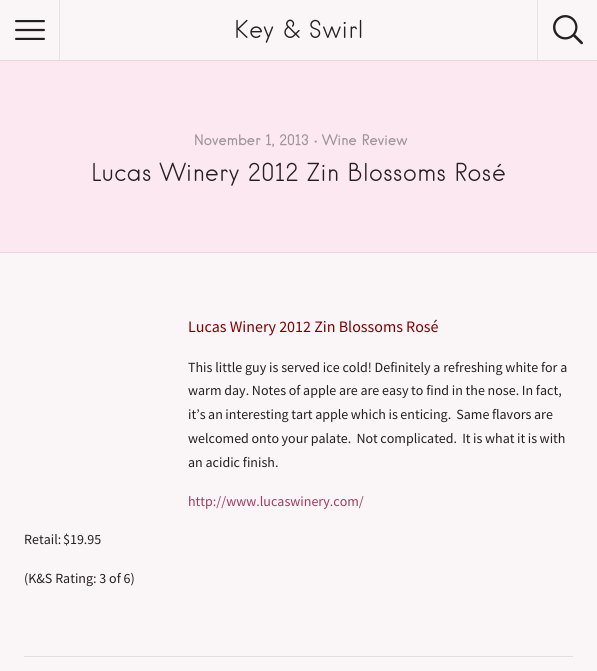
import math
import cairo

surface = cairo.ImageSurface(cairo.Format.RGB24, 597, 671)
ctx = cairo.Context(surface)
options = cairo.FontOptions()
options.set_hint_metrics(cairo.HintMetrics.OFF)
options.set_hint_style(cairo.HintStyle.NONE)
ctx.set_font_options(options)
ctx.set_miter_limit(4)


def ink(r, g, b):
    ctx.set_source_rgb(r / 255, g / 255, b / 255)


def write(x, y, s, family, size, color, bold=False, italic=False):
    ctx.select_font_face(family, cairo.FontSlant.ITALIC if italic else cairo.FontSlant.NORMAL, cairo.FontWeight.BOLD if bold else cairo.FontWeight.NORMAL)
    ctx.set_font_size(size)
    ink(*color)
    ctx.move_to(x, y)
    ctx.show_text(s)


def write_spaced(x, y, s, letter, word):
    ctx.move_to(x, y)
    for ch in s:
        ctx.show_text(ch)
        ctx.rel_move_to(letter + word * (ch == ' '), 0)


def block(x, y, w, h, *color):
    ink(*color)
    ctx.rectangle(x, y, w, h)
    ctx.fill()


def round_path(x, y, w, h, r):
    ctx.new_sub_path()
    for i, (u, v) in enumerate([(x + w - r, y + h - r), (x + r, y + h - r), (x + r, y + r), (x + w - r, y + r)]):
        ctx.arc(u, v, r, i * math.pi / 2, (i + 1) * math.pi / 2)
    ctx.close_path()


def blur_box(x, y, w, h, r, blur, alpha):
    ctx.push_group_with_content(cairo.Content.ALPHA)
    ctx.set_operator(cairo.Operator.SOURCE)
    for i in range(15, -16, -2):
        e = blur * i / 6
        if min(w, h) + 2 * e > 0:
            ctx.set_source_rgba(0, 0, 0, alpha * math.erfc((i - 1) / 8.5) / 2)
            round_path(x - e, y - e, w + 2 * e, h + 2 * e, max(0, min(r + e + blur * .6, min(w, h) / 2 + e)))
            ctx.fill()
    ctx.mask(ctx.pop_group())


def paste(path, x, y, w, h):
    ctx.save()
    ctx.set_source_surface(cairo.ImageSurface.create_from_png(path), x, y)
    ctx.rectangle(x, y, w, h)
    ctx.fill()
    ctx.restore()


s1 = dict(family="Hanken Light", size=24, color=(36, 31, 33))
s2 = dict(family="Hanken", size=14, color=(157, 149, 152))
s3 = dict(family="Source Sans Pro", size=16, color=(128, 0, 0))
s4 = dict(family="Source Sans Pro", size=14, color=(36, 31, 33))
s5 = dict(family="Source Sans Pro", size=14, color=(164, 57, 97))

ink(250, 245, 247)
ctx.paint()
block(0, 60, 597, 192, 252, 232, 240)
ctx.save()
ctx.rectangle(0, 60, 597, 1)
ctx.clip()
ink(0, 0, 0)
blur_box(0, 0, 597, 60, 0, 1, 0.25)
ctx.restore()
block(59, 0, 1, 60, 231, 227, 228)
paste("pic1.png", 15, 20, 30, 20)
write(234, 38, "Key & Swirl", **s1)
block(537, 0, 1, 60, 231, 227, 228)
paste("pic2.png", 553, 15, 30, 30)
block(0, 252, 597, 1, 233, 215, 222)
write(194, 145, "November 1, 2013 • Wine Review", **s2)
ctx.select_font_face("Hanken Light")
ctx.set_font_size(24)
ink(36, 31, 33)
write_spaced(91, 181, "Lucas Winery 2012 Zin Blossoms Rosé", 0, -0.25)
write(188, 332, "Lucas Winery 2012 Zin Blossoms Rosé", **s3)
write(188, 372, "This little guy is served ice cold! Definitely a refreshing white for a", **s4)
write_spaced(188, 395, "warm day. Notes of apple are are easy to find in the nose. In fact,", 0, -0.1)
write_spaced(188, 419, "it’s an interesting tart apple which is enticing.  Same flavors are", 0, -0.25)
write_spaced(188, 443, "welcomed onto your palate.  Not complicated.  It is what it is with", 0, -0.25)
write(188, 467, "an acidic finish.", **s4)
write(188, 506, "http://www.lucaswinery.com/", **s5)
ink(36, 31, 33)
write_spaced(24, 544, "Retail: $19.95", 0, -1)
write(24, 583, "(K&S Rating: 3 of 6)", **s4)
block(24, 656, 549, 1, 226, 222, 223)
surface.write_to_png("screenshot.png")
